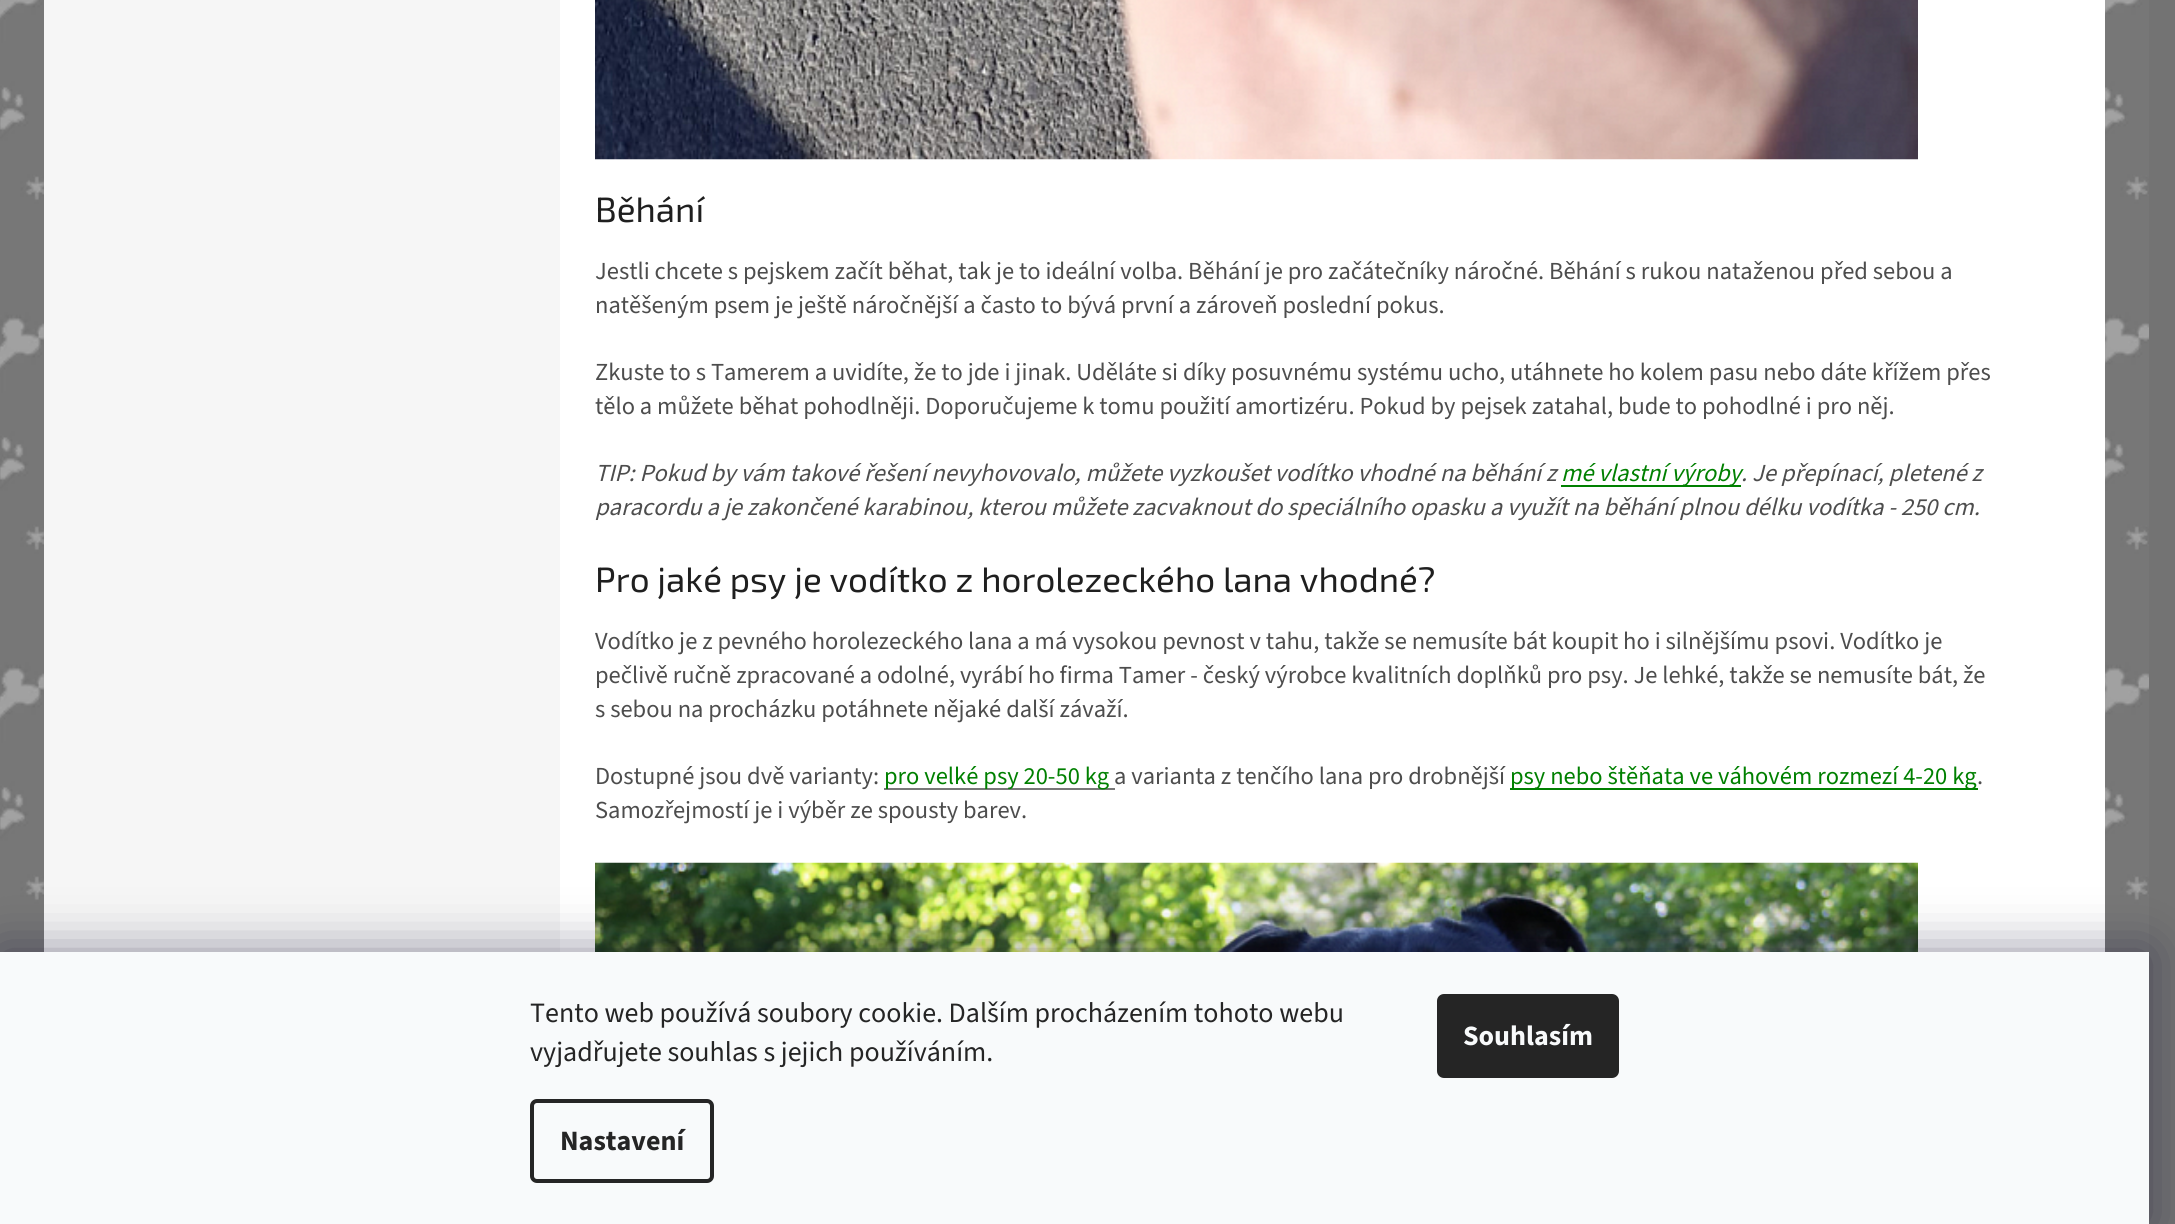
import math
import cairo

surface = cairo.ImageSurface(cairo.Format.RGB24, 2175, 1224)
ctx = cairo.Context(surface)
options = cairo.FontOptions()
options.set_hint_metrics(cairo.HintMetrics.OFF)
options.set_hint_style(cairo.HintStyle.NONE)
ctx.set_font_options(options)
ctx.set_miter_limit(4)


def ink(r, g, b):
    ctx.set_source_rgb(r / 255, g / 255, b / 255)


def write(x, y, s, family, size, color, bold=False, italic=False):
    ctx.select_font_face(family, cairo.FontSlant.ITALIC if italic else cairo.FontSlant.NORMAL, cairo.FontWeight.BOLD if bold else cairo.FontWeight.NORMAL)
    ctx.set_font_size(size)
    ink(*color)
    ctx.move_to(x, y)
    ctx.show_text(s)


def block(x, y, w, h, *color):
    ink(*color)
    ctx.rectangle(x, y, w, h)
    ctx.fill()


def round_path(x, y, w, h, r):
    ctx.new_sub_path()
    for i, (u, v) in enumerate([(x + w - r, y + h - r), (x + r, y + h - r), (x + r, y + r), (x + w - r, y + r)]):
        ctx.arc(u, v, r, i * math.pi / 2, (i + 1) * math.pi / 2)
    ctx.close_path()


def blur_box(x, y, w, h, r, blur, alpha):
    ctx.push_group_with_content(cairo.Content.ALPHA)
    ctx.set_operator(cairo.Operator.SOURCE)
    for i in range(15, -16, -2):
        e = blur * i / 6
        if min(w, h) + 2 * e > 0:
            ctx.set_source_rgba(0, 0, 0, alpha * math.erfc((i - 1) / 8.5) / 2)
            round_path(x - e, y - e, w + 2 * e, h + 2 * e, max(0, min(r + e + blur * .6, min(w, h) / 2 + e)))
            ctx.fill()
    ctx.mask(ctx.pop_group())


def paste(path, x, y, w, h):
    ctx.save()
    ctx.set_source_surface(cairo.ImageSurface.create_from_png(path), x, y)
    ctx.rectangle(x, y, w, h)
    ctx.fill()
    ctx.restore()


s1 = dict(family="Exo 2", size=35, color=(31, 31, 31))
s2 = dict(family="Source Sans 3", size=24.5, color=(77, 77, 77))
s3 = dict(family="Source Sans 3", size=24.5, color=(77, 77, 77), italic=True)
s4 = dict(family="Source Sans 3", size=24.5, color=(0, 128, 0), italic=True)
s5 = dict(family="Source Sans 3", size=24.5, color=(0, 128, 0))
s6 = dict(family="Source Sans 3", size=28, color=(37, 37, 37))
s7 = dict(family="Source Sans 3", size=28, color=(37, 37, 37), bold=True)
s8 = dict(family="Source Sans 3", size=28, color=(248, 250, 251), bold=True)

ink(115, 115, 115)
ctx.paint()
paste("pic1.png", 0, 0, 2149, 952)
block(560, 0, 1545, 952, 255, 255, 255)
block(44, 0, 516, 952, 246, 246, 246)
paste("pic2.png", 595, 0, 1323, 160)
write(595, 222, "Běhání", **s1)
write(595, 279, "Jestli chcete s pejskem začít běhat, tak je to ideální volba. Běhání je pro začátečníky náročné. Běhání s rukou nataženou před sebou a", **s2)
write(595, 313, "natěšeným psem je ještě náročnější a často to bývá první a zároveň poslední pokus.", **s2)
write(595, 380, "Zkuste to s Tamerem a uvidíte, že to jde i jinak. Uděláte si díky posuvnému systému ucho, utáhnete ho kolem pasu nebo dáte křížem přes", **s2)
write(595, 414, "tělo a můžete běhat pohodlněji. Doporučujeme k tomu použití amortizéru. Pokud by pejsek zatahal, bude to pohodlné i pro něj.", **s2)
write(595, 481, "TIP: Pokud by vám takové řešení nevyhovovalo, můžete vyzkoušet vodítko vhodné na běhání z", **s3)
block(1561, 485, 180, 2, 0, 128, 0)
write(1561, 481, "mé vlastní výroby", **s4)
write(1741, 481, ". Je přepínací, pletené z", **s3)
write(595, 515, "paracordu a je zakončené karabinou, kterou můžete zacvaknout do speciálního opasku a využít na běhání plnou délku vodítka - 250 cm.", **s3)
write(595, 592, "Pro jaké psy je vodítko z horolezeckého lana vhodné?", **s1)
write(595, 649, "Vodítko je z pevného horolezeckého lana a má vysokou pevnost v tahu, takže se nemusíte bát koupit ho i silnějšímu psovi. Vodítko je", **s2)
write(595, 683, "pečlivě ručně zpracované a odolné, vyrábí ho firma Tamer - český výrobce kvalitních doplňků pro psy. Je lehké, takže se nemusíte bát, že", **s2)
write(595, 717, "s sebou na procházku potáhnete nějaké další závaží.", **s2)
write(595, 784, "Dostupné jsou dvě varianty:", **s2)
block(884, 788, 231, 2, 119, 119, 119)
write(884, 784, "pro velké psy 20-50 kg", **s5)
write(1114, 784, "a varianta z tenčího lana pro drobnější", **s2)
block(1510, 788, 468, 2, 0, 128, 0)
write(1510, 784, "psy nebo štěňata ve váhovém rozmezí 4-20 kg", **s5)
write(1977, 784, ".", **s2)
write(595, 818, "Samozřejmostí je i výběr ze spousty barev.", **s2)
paste("pic3.png", 595, 862, 1323, 90)
ink(27, 25, 57)
blur_box(0, 952, 2149, 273, 0, 26, 0.5)
block(0, 952, 2149, 272, 248, 250, 251)
write(530, 1022, "Tento web používá soubory cookie. Dalším procházením tohoto webu", **s6)
write(530, 1061, "vyjadřujete souhlas s jejich používáním.", **s6)
round_path(532, 1101, 180, 80, 5)
ctx.set_line_width(4)
ctx.stroke()
write(560, 1150, "Nastavení", **s7)
round_path(1437, 994, 182, 84, 7)
ctx.fill()
write(1463, 1045, "Souhlasím", **s8)
surface.write_to_png("screenshot.png")
